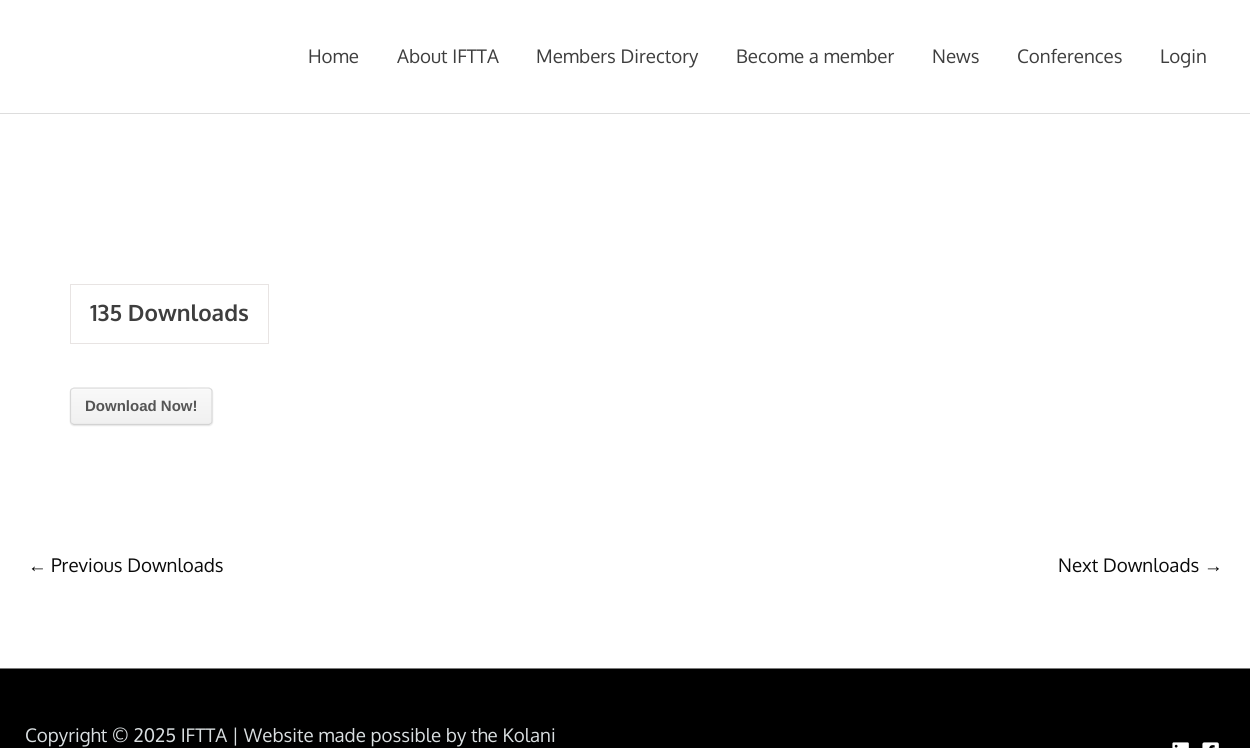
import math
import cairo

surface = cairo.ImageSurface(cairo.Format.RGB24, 1250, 748)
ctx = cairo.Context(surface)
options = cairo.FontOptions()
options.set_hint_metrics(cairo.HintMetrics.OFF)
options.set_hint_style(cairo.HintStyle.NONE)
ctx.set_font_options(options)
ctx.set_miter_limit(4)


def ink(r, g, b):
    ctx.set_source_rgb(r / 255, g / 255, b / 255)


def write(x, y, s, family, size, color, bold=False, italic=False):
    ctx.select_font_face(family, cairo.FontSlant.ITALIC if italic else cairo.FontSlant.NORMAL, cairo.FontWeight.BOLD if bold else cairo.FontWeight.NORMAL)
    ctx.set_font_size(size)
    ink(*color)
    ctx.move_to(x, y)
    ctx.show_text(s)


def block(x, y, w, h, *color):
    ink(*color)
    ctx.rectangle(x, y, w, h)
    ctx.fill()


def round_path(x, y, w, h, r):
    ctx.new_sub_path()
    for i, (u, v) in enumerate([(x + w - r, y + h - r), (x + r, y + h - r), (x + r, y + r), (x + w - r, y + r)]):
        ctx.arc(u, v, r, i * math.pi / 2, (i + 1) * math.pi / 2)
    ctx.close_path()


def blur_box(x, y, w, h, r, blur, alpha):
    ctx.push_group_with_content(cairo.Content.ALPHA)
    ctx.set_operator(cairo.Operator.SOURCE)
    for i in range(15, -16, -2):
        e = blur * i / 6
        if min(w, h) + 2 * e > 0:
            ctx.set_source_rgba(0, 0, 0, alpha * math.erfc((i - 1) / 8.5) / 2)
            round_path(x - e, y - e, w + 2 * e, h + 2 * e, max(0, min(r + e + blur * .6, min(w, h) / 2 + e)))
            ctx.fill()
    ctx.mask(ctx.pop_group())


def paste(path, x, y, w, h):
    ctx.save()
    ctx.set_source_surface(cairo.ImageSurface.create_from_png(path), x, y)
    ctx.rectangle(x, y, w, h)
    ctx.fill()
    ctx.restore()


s1 = dict(family="Oxygen", size=18.75, color=(62, 62, 62))
s2 = dict(family="Oxygen", size=22.5, color=(62, 62, 62), bold=True)
s3 = dict(family="Liberation Sans", size=15, color=(85, 85, 85), bold=True)
s4 = dict(family="Liberation Sans", size=18.75, color=(10, 10, 10))
s5 = dict(family="Oxygen", size=18.75, color=(10, 10, 10))
s6 = dict(family="Oxygen", size=18.75, color=(217, 222, 224))

ink(255, 255, 255)
ctx.paint()
block(0, 113, 1250, 1, 221, 221, 221)
write(308, 63, "Home", **s1)
write(397, 63, "About IFTTA", **s1)
write(536, 63, "Members Directory", **s1)
write(736, 63, "Become a member", **s1)
write(932, 63, "News", **s1)
write(1017, 63, "Conferences", **s1)
write(1160, 63, "Login", **s1)
ctx.rectangle(70.5, 284.5, 198, 59)
ink(232, 228, 227)
ctx.set_line_width(1)
ctx.stroke()
write(90, 321, "135 Downloads", **s2)
ink(234, 234, 234)
blur_box(70, 389, 143, 37, 4, 0.5, 1)
ctx.save()
round_path(70, 388, 143, 37, 4)
ctx.clip()
gradient = cairo.LinearGradient(71, 354, 71, 389)
gradient.add_color_stop_rgba(0, 0.976, 0.976, 0.976, 1)
gradient.add_color_stop_rgba(1, 0.941, 0.941, 0.941, 1)
ctx.set_source(gradient)
ctx.rectangle(70, 388, 143, 1)
ctx.fill()
gradient = cairo.LinearGradient(71, 389, 71, 424)
gradient.add_color_stop_rgba(0, 0.976, 0.976, 0.976, 1)
gradient.add_color_stop_rgba(1, 0.941, 0.941, 0.941, 1)
ctx.set_source(gradient)
ctx.rectangle(70, 389, 143, 35)
ctx.fill()
gradient = cairo.LinearGradient(71, 424, 71, 459)
gradient.add_color_stop_rgba(0, 0.976, 0.976, 0.976, 1)
gradient.add_color_stop_rgba(1, 0.941, 0.941, 0.941, 1)
ctx.set_source(gradient)
ctx.rectangle(70, 424, 143, 1)
ctx.fill()
ctx.restore()
ink(251, 251, 251)
ctx.new_path()
ctx.move_to(74, 390)
ctx.line_to(209, 390)
ctx.curve_to(210, 390, 211, 391, 211, 392)
ctx.curve_to(211, 384, 189, 389, 186, 389)
ctx.line_to(74, 389)
ctx.line_to(72, 390)
ctx.line_to(71, 392)
ctx.curve_to(71, 391, 72, 390, 74, 390)
ctx.close_path()
ctx.fill()
ctx.new_path()
ctx.move_to(71.5, 389)
ctx.line_to(74, 388)
ctx.line_to(209, 388)
ctx.line_to(211, 389)
ink(222, 222, 222)
ctx.set_line_width(1.2)
ctx.stroke()
ctx.new_path()
ctx.move_to(211, 389)
ctx.curve_to(211.5, 389.5, 212, 390.5, 212, 391)
ctx.line_to(212, 421)
ctx.curve_to(212, 422, 211.5, 423, 211, 423.5)
ink(216, 216, 216)
ctx.stroke()
ctx.new_path()
ctx.move_to(211, 423.5)
ctx.line_to(209, 424.5)
ctx.line_to(74, 424.5)
ctx.line_to(71.5, 423.5)
ink(211, 211, 211)
ctx.stroke()
ctx.new_path()
ctx.move_to(71.5, 423.5)
ctx.curve_to(71, 423, 70.5, 422, 70.5, 421)
ctx.line_to(70.5, 391)
ctx.curve_to(70.5, 390.5, 71, 389.5, 71.5, 389)
ink(216, 216, 216)
ctx.stroke()
write(85, 411, "Download Now!", **s3)
write(28, 572, "←", **s4)
write(51, 572, "Previous Downloads", **s5)
write(1058, 572, "Next Downloads", **s5)
write(1204, 572, "→", **s4)
block(0, 668, 1250, 1, 122, 122, 122)
block(0, 669, 1250, 79, 0, 0, 0)
write(25, 742, "Copyright © 2025 IFTTA | Website made possible by the Kolani", **s6)
paste("pic1.png", 1172, 742, 17, 6)
paste("pic2.png", 1202, 742, 17, 6)
surface.write_to_png("screenshot.png")
